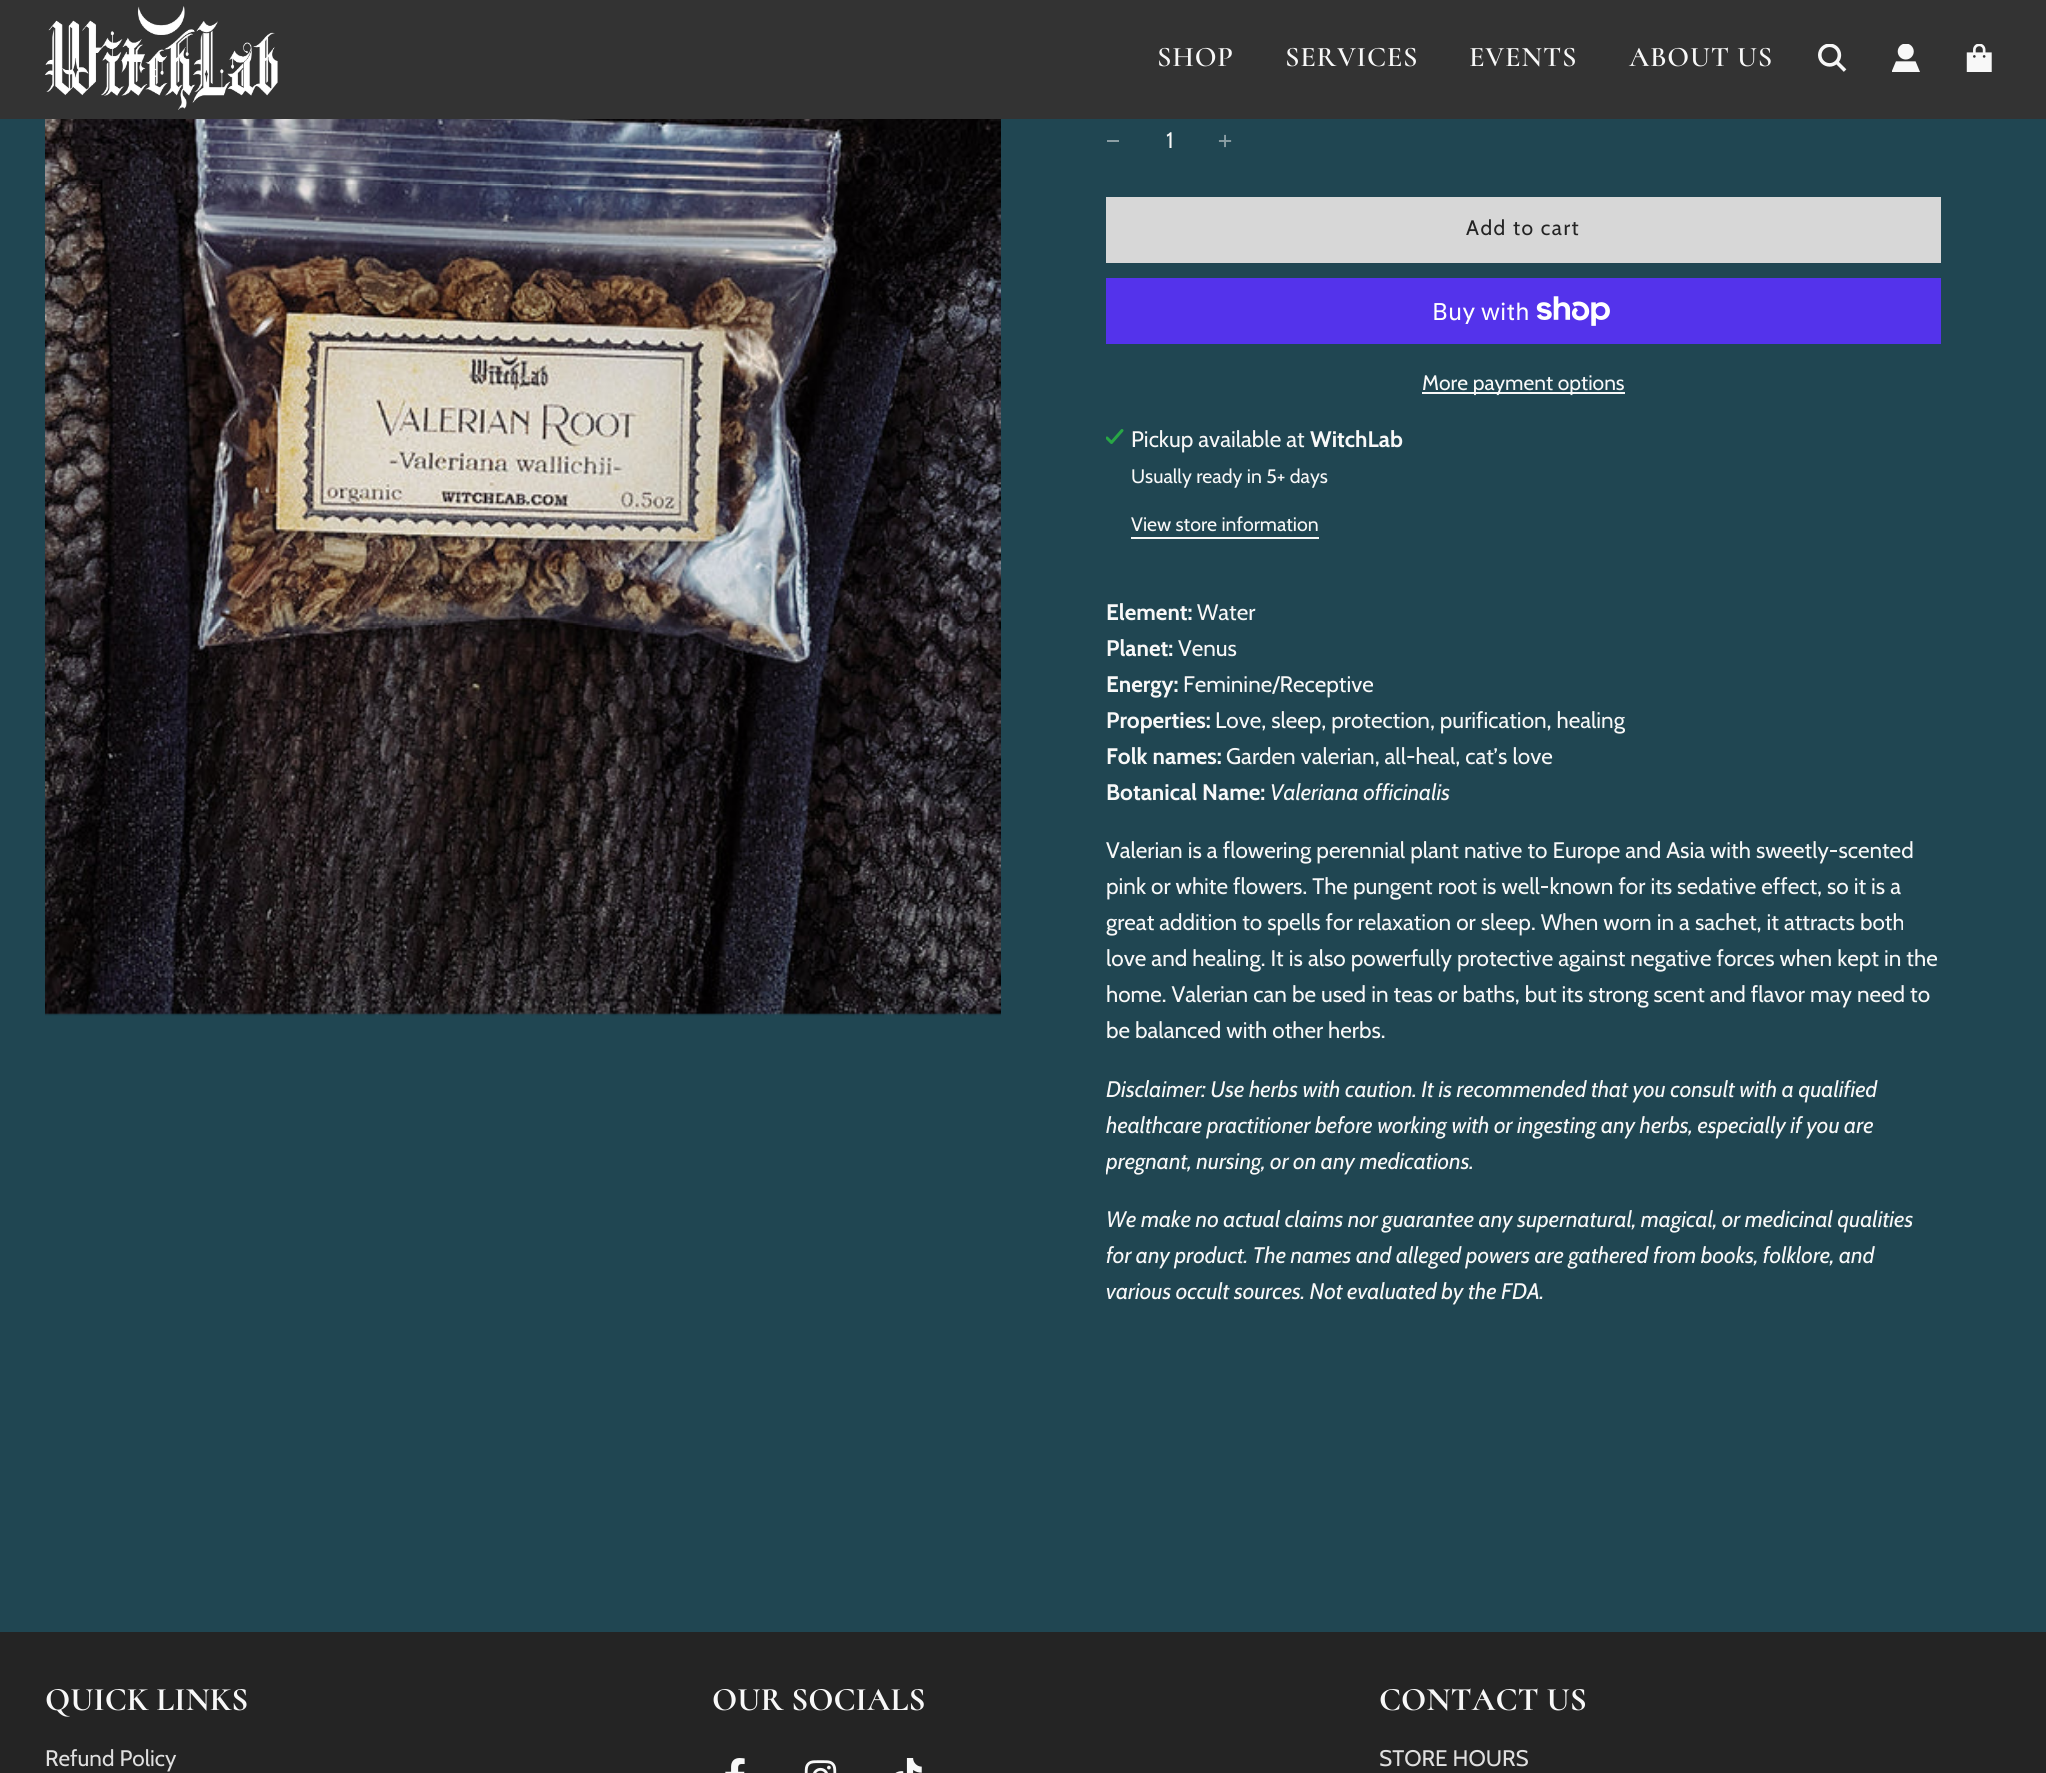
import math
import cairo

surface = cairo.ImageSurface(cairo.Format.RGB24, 2046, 1773)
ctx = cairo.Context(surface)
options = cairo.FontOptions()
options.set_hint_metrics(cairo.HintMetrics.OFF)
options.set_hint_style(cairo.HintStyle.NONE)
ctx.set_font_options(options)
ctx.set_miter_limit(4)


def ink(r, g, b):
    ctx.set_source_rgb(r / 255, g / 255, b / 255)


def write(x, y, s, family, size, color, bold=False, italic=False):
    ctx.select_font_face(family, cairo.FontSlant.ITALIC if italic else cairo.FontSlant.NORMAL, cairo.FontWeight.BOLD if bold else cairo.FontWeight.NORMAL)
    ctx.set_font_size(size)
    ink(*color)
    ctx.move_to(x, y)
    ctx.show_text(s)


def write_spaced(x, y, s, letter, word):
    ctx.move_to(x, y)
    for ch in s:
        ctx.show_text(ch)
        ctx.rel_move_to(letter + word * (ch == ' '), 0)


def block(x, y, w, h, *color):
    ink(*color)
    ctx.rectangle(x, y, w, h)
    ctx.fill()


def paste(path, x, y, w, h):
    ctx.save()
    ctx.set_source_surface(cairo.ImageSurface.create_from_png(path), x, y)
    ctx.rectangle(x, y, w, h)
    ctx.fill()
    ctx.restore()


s1 = dict(family="Cabin", size=22.5, color=(248, 248, 248))
s2 = dict(family="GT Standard", size=24, color=(255, 255, 255))
s3 = dict(family="Cabin", size=21, color=(248, 248, 248))
s4 = dict(family="Cabin", size=22.5, color=(248, 248, 248), bold=True)
s5 = dict(family="Cabin", size=19.5, color=(248, 248, 248))
s6 = dict(family="Cabin", size=22.5, color=(248, 248, 248), italic=True)
s7 = dict(family="Cormorant", size=33, color=(248, 248, 248), bold=True)
s8 = dict(family="Cabin", size=22.5, color=(223, 223, 223))

ink(32, 70, 82)
ctx.paint()
block(0, 0, 2046, 119, 51, 51, 51)
paste("pic1.png", 45, 6, 233, 104)
ctx.select_font_face("Cormorant SemiBold")
ctx.set_font_size(28.5)
ink(248, 248, 248)
write_spaced(1157, 66, "SHOP", 0.75, 0)
write_spaced(1285, 66, "SERVICES", 0.75, 0)
write_spaced(1469, 66, "EVENTS", 0.75, 0)
write_spaced(1629, 66, "ABOUT US", 0.75, 0)
paste("pic2.png", 1818, 44, 29, 28)
paste("pic3.png", 1892, 44, 28, 28)
paste("pic4.png", 1966, 44, 26, 28)
paste("pic5.png", 45, 119, 956, 897)
block(1107, 140, 12, 2, 140, 159, 165)
write(1166, 148, "1", **s1)
paste("pic6.png", 1218, 134, 14, 14)
block(1106, 197, 835, 66, 215, 215, 215)
ctx.set_font_size(21)
ink(36, 36, 36)
write_spaced(1466, 235, "Add to cart", 1.5, 0)
block(1106, 278, 835, 66, 84, 51, 235)
write(1432, 320, "Buy with", **s2)
paste("pic7.png", 1536, 296, 74, 30)
block(1422, 392, 203, 2, 248, 248, 248)
write(1422, 390, "More payment options", **s3)
paste("pic8.png", 1106, 429, 18, 15)
write(1131, 447, "Pickup available at", **s1)
write(1310, 447, "WitchLab", **s4)
write(1131, 483, "Usually ready in 5+ days", **s5)
write(1131, 531, "View store information", **s5)
block(1131, 537, 188, 2, 248, 248, 248)
write(1106, 620, "Element:", **s4)
write(1197, 620, "Water", **s1)
write(1106, 656, "Planet:", **s4)
write(1178, 656, "Venus", **s1)
write(1106, 692, "Energy:", **s4)
write(1183, 692, "Feminine/Receptive", **s1)
write(1106, 728, "Properties:", **s4)
write(1215, 728, "Love, sleep, protection, purification, healing", **s1)
write(1106, 764, "Folk names:", **s4)
write(1226, 764, "Garden valerian, all-heal, cat’s love", **s1)
write(1106, 800, "Botanical Name:", **s4)
write(1270, 800, "Valeriana officinalis", **s6)
write(1106, 858, "Valerian is a flowering perennial plant native to Europe and Asia with sweetly-scented", **s1)
write(1106, 894, "pink or white flowers. The pungent root is well-known for its sedative effect, so it is a", **s1)
write(1106, 930, "great addition to spells for relaxation or sleep. When worn in a sachet, it attracts both", **s1)
write(1106, 966, "love and healing. It is also powerfully protective against negative forces when kept in the", **s1)
write(1106, 1002, "home. Valerian can be used in teas or baths, but its strong scent and flavor may need to", **s1)
write(1106, 1038, "be balanced with other herbs.", **s1)
write(1106, 1097, "Disclaimer: Use herbs with caution. It is recommended that you consult with a qualified", **s6)
write(1106, 1133, "healthcare practitioner before working with or ingesting any herbs, especially if you are", **s6)
ctx.save()
ctx.rectangle(1106, 594, 835, 738)
ctx.clip()
write(1106, 1169, "pregnant, nursing, or on any medications.", **s6)
ctx.restore()
write(1106, 1227, "We make no actual claims nor guarantee any supernatural, magical, or medicinal qualities", **s6)
write(1106, 1263, "for any product. The names and alleged powers are gathered from books, folklore, and", **s6)
write(1106, 1299, "various occult sources. Not evaluated by the FDA.", **s6)
block(0, 1632, 2046, 141, 36, 36, 36)
write(45, 1710, "QUICK LINKS", **s7)
write(45, 1766, "Refund Policy", **s8)
write(712, 1710, "OUR SOCIALS", **s7)
paste("pic9.png", 725, 1758, 20, 15)
paste("pic10.png", 804, 1760, 33, 13)
paste("pic11.png", 895, 1758, 27, 15)
write(1379, 1710, "CONTACT US", **s7)
write(1379, 1766, "STORE HOURS", **s8)
surface.write_to_png("screenshot.png")
